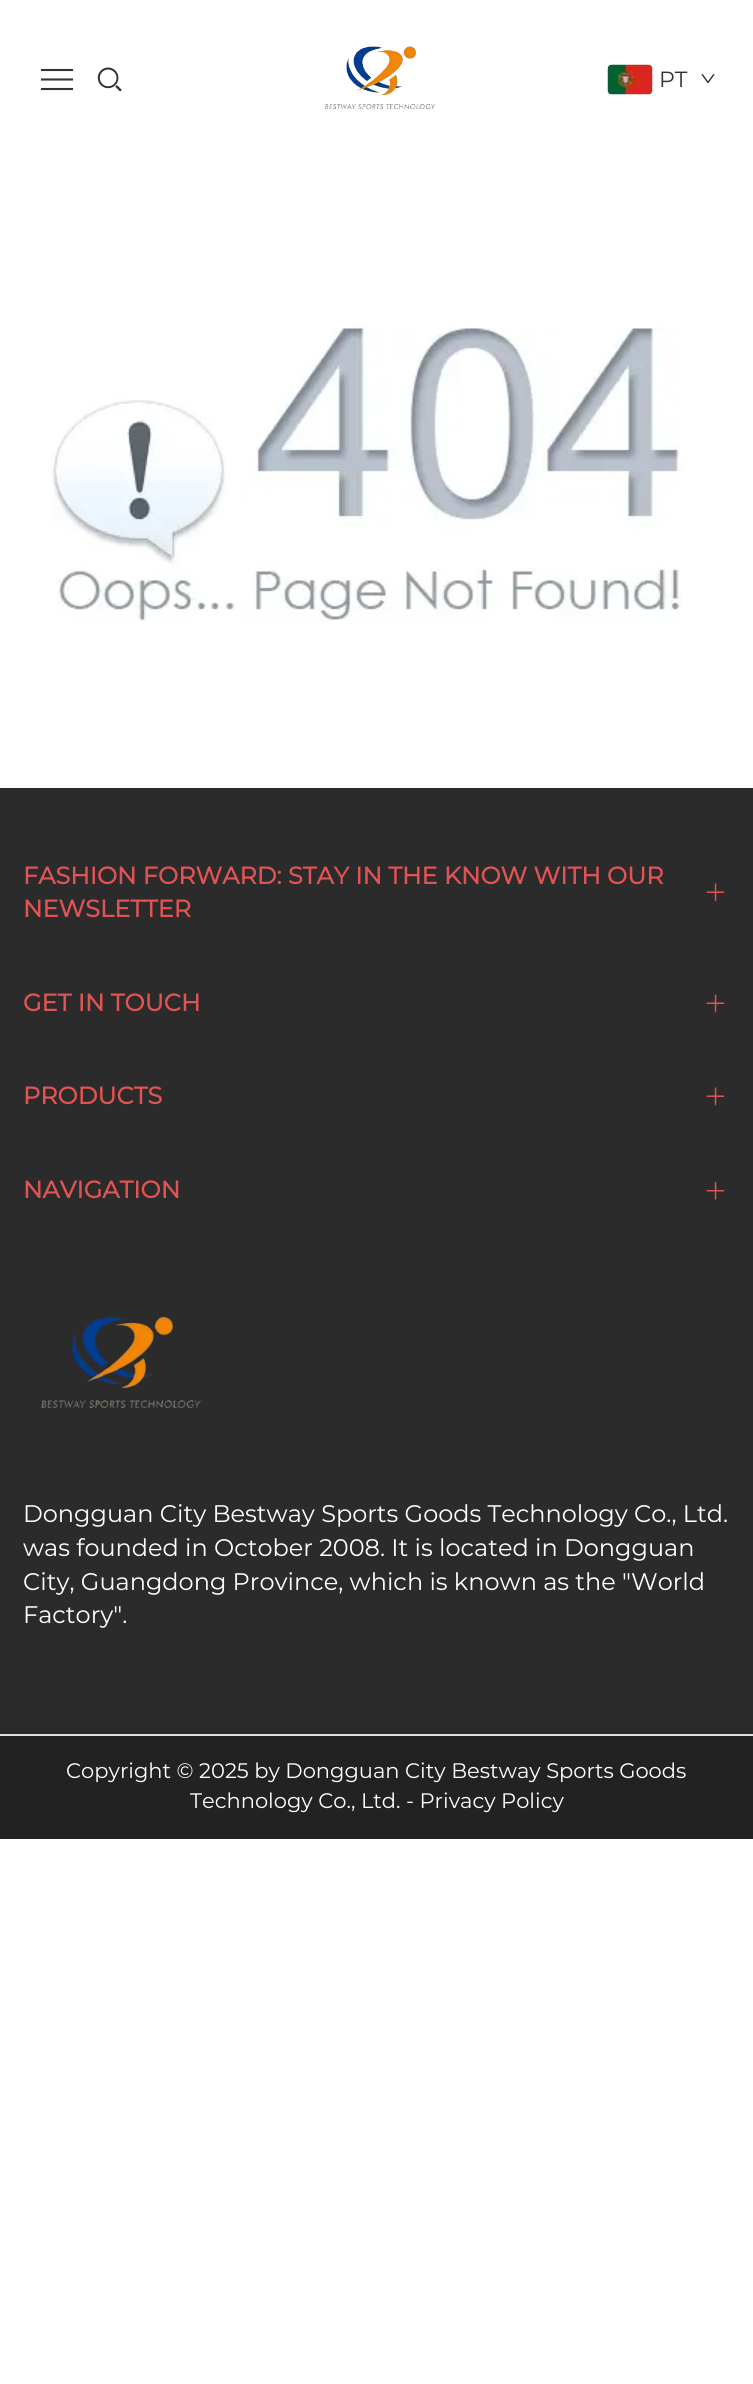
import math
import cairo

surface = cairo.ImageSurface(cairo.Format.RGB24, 753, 2384)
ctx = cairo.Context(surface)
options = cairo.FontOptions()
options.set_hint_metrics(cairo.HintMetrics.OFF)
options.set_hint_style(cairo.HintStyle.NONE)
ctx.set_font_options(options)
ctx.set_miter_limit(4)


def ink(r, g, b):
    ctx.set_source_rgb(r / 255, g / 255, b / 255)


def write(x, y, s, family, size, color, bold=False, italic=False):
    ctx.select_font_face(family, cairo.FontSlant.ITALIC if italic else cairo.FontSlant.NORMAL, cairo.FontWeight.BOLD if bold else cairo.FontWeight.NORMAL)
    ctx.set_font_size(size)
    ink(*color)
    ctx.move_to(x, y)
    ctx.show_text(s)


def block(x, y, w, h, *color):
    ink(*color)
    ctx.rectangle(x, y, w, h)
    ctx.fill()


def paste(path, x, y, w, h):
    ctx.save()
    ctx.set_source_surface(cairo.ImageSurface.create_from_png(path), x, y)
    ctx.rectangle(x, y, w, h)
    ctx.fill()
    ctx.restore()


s1 = dict(family="Montserrat", size=22, color=(47, 51, 54))
s2 = dict(family="Montserrat", size=24, color=(227, 83, 83), bold=True)
s3 = dict(family="Montserrat", size=24, color=(255, 255, 255))
s4 = dict(family="Montserrat", size=21, color=(255, 255, 255))

ink(255, 255, 255)
ctx.paint()
ctx.new_path()
ctx.move_to(42, 89)
ctx.line_to(72, 89)
ctx.move_to(42, 79.5)
ctx.line_to(72, 79.5)
ctx.move_to(42, 70)
ctx.line_to(72, 70)
ink(47, 51, 54)
ctx.set_line_width(2.1)
ctx.set_line_cap(cairo.LineCap.SQUARE)
ctx.stroke()
paste("pic1.png", 97, 67, 25, 25)
paste("pic2.png", 325, 46, 111, 64)
paste("pic3.png", 607, 64, 46, 31)
write(659, 87, "PT", **s1)
paste("pic4.png", 701, 74, 14, 10)
paste("pic5.png", 51, 327, 631, 295)
block(0, 788, 753, 946, 43, 43, 43)
write(23, 884, "FASHION FORWARD: STAY IN THE KNOW WITH OUR", **s2)
paste("pic6.png", 706, 883, 19, 19)
write(23, 917, "NEWSLETTER", **s2)
write(23, 1011, "GET IN TOUCH", **s2)
paste("pic6.png", 706, 994, 19, 19)
write(23, 1104, "PRODUCTS", **s2)
paste("pic6.png", 706, 1087, 19, 19)
write(23, 1198, "NAVIGATION", **s2)
paste("pic7.png", 706, 1181, 19, 19)
paste("pic8.png", 41, 1316, 160, 93)
write(23, 1522, "Dongguan City Bestway Sports Goods Technology Co., Ltd.", **s3)
write(23, 1556, "was founded in October 2008. It is located in Dongguan", **s3)
write(23, 1590, "City, Guangdong Province, which is known as the \"World", **s3)
write(23, 1623, "Factory\".", **s3)
block(0, 1736, 753, 103, 34, 34, 34)
block(0, 1734, 753, 2, 225, 225, 225)
write(66, 1778, "Copyright © 2025 by Dongguan City Bestway Sports Goods", **s4)
write(190, 1808, "Technology Co., Ltd. - Privacy Policy", **s4)
surface.write_to_png("screenshot.png")
